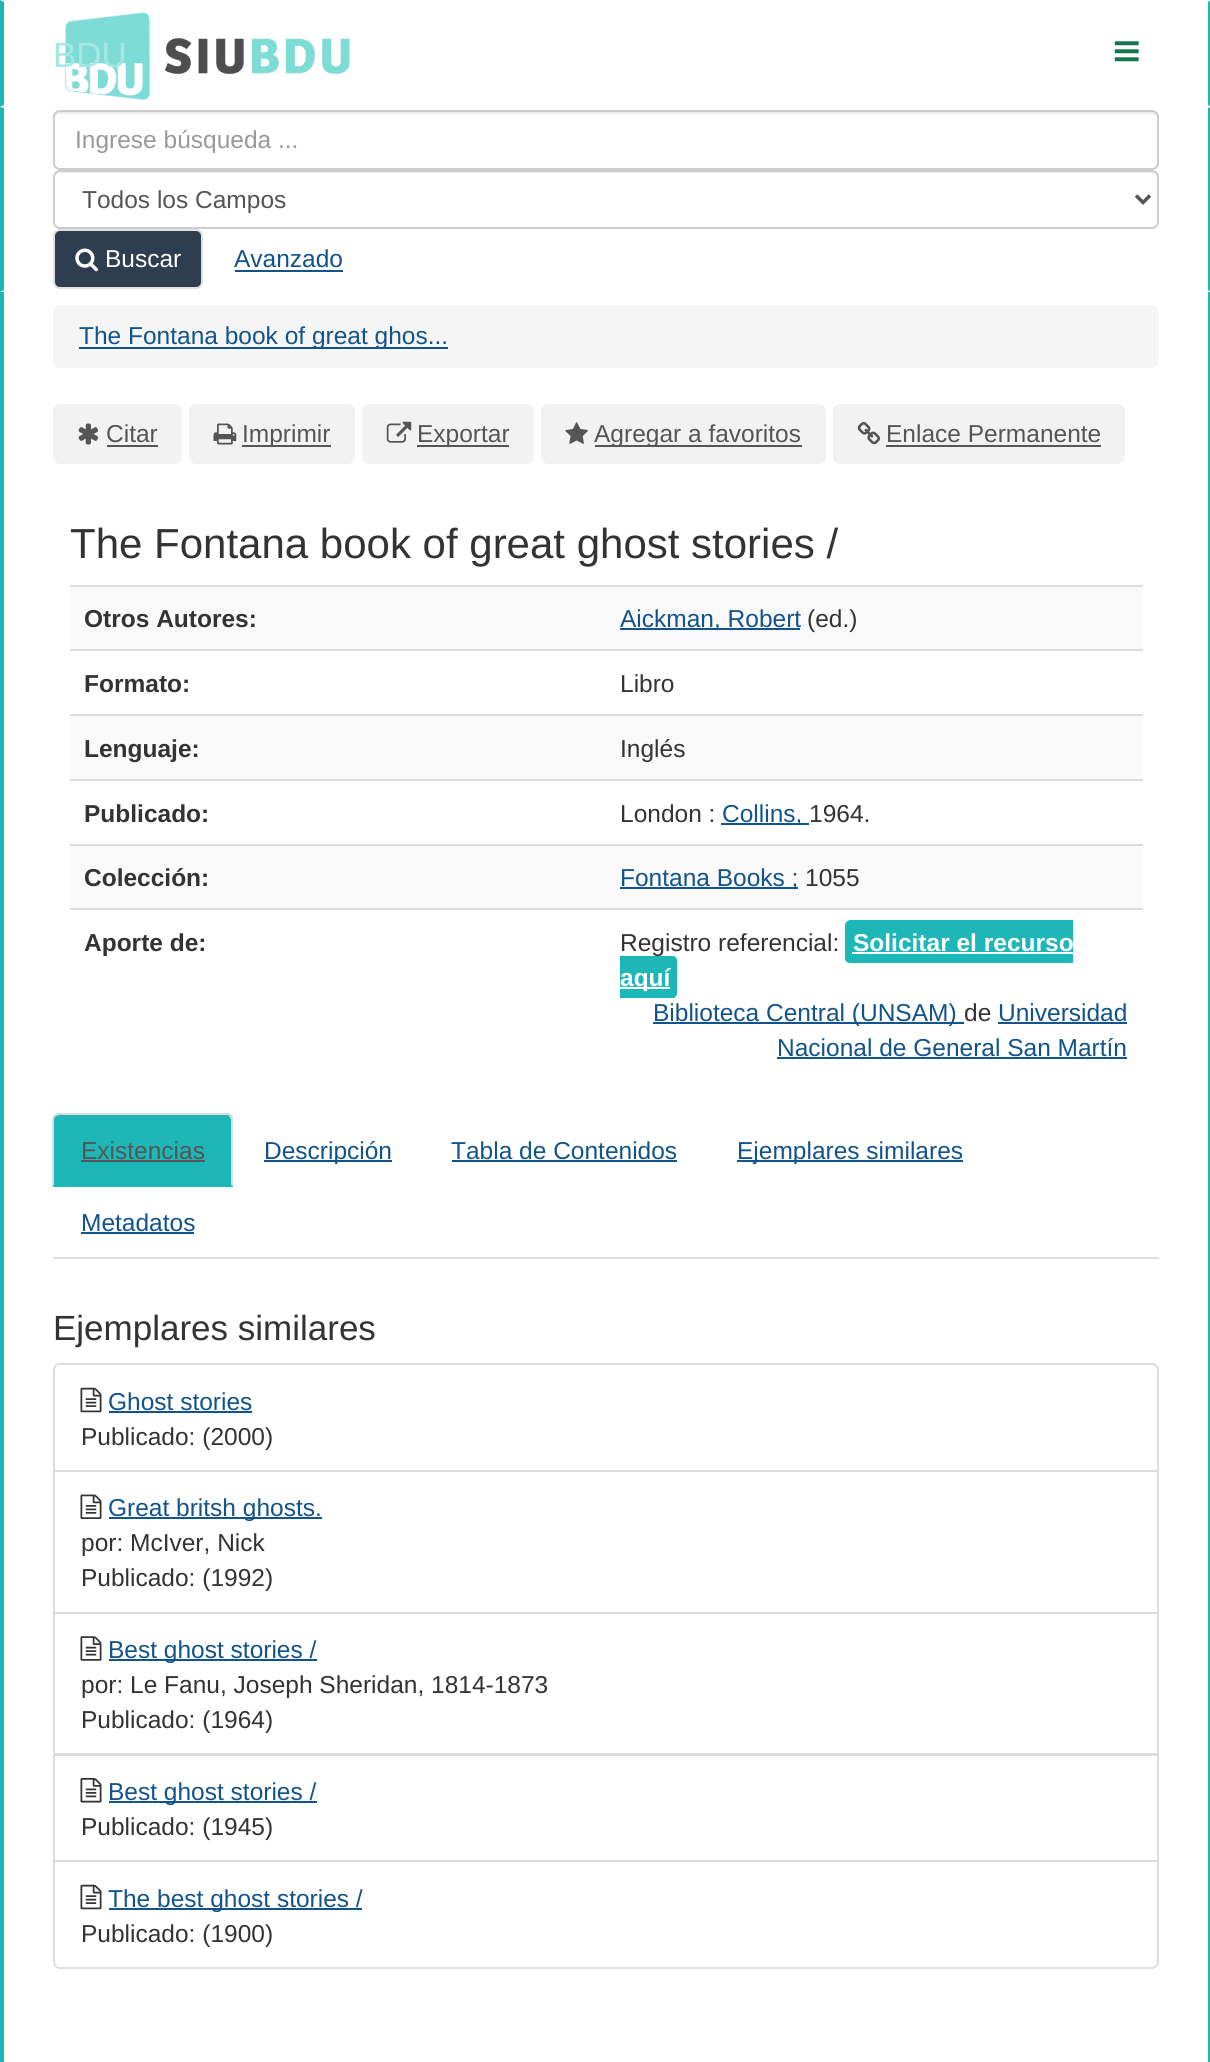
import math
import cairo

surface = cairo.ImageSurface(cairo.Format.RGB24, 1210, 2062)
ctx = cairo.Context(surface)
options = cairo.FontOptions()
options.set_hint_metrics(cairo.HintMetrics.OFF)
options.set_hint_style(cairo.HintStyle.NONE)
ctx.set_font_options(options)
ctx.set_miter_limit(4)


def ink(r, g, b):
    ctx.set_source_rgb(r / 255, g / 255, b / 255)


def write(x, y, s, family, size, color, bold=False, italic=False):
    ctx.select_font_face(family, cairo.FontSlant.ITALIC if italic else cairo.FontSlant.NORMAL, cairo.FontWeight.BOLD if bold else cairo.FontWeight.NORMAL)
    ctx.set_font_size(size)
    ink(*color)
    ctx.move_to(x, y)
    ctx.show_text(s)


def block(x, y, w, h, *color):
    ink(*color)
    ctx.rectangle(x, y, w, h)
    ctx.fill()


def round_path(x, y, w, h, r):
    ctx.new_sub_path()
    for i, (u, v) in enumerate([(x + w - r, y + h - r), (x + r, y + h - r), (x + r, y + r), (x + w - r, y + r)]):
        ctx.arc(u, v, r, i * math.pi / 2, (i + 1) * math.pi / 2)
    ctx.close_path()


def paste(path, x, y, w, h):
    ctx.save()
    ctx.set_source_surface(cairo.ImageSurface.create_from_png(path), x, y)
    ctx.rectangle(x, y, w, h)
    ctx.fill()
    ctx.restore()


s1 = dict(family="Liberation Sans", size=35, color=(166, 231, 227))
s2 = dict(family="Liberation Sans", size=24.5, color=(153, 153, 153))
s3 = dict(family="Liberation Sans", size=24.5, color=(85, 85, 85))
s4 = dict(family="Liberation Sans", size=24.5, color=(255, 255, 255))
s5 = dict(family="Liberation Sans", size=24.5, color=(18, 83, 139))
s6 = dict(family="Liberation Sans", size=42, color=(51, 51, 51))
s7 = dict(family="Liberation Sans", size=24.5, color=(51, 51, 51), bold=True)
s8 = dict(family="Liberation Sans", size=24.5, color=(51, 51, 51))
s9 = dict(family="Liberation Sans", size=24.5, color=(255, 255, 255), bold=True)
s10 = dict(family="Liberation Sans", size=35, color=(51, 51, 51))

ink(255, 255, 255)
ctx.paint()
ink(30, 183, 183)
ctx.new_path()
ctx.move_to(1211, 0)
ctx.line_to(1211, 107)
ctx.line_to(1208, 105)
ctx.line_to(1208, 2)
ctx.close_path()
ctx.fill()
ctx.new_path()
ctx.move_to(0, 107)
ctx.line_to(0, 0)
ctx.line_to(4, 2)
ctx.line_to(4, 105)
ctx.close_path()
ctx.fill()
paste("pic1.png", 65, 12, 285, 89)
write(53, 67, "BDU", **s1)
paste("pic2.png", 1114, 41, 25, 21)
ink(30, 183, 183)
ctx.new_path()
ctx.move_to(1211, 107)
ctx.line_to(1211, 292)
ctx.line_to(1208, 290)
ctx.line_to(1208, 108)
ctx.close_path()
ctx.fill()
ctx.new_path()
ctx.move_to(0, 292)
ctx.line_to(0, 107)
ctx.line_to(4, 108)
ctx.line_to(4, 290)
ctx.close_path()
ctx.fill()
ink(236, 236, 236)
ctx.new_path()
ctx.move_to(60, 114)
ctx.line_to(1152, 114)
ctx.curve_to(1154, 114, 1157, 116, 1157, 119)
ctx.line_to(1157, 117)
ctx.curve_to(1157, 114, 1155, 112, 1152, 112)
ctx.line_to(59, 112)
ctx.curve_to(56, 112, 54, 114, 54, 117)
ctx.line_to(54, 119)
ctx.curve_to(54, 116, 57, 114, 60, 114)
ctx.close_path()
ctx.fill()
round_path(54, 111, 1104, 58, 6)
ink(204, 204, 204)
ctx.stroke()
write(75, 148, "Ingrese búsqueda ...", **s2)
ink(236, 236, 236)
ctx.new_path()
ctx.move_to(60, 173)
ctx.line_to(1152, 173)
ctx.curve_to(1154, 173, 1157, 176, 1157, 178)
ctx.curve_to(1157, 175, 1155, 172, 1152, 172)
ctx.line_to(59, 172)
ctx.curve_to(56, 172, 54, 175, 54, 178)
ctx.curve_to(54, 176, 57, 173, 60, 173)
ctx.close_path()
ctx.fill()
round_path(54, 171, 1104, 57, 6)
ink(204, 204, 204)
ctx.stroke()
ctx.new_path()
ctx.move_to(1136, 195.5)
ctx.line_to(1143, 202.5)
ctx.line_to(1150, 195.5)
ink(85, 85, 85)
ctx.set_line_width(3.5)
ctx.stroke()
write(82, 208, "Todos los Campos", **s3)
ink(46, 62, 81)
round_path(54, 230, 148, 58, 6)
ctx.fill_preserve()
ink(224, 224, 224)
ctx.set_line_width(2)
ctx.stroke()
paste("pic3.png", 75, 248, 23, 24)
write(105, 267, "Buscar", **s4)
write(234, 267, "Avanzado", **s5)
block(235, 270, 108, 2, 18, 83, 139)
block(1208, 292, 2, 1770, 30, 183, 183)
block(0, 292, 4, 1770, 30, 183, 183)
ink(245, 245, 245)
round_path(53, 305, 1106, 63, 7)
ctx.fill()
block(79, 347, 369, 2, 18, 83, 139)
write(79, 344, "The Fontana book of great ghos...", **s5)
ink(242, 242, 242)
round_path(53, 404, 129, 60, 7)
ctx.fill()
paste("pic4.png", 78, 423, 21, 22)
write(106, 442, "Citar", **s3)
block(107, 445, 51, 2, 85, 85, 85)
ink(242, 242, 242)
round_path(189, 404, 166, 60, 7)
ctx.fill()
paste("pic5.png", 213, 423, 24, 22)
block(242, 445, 89, 2, 85, 85, 85)
write(242, 442, "Imprimir", **s3)
ink(242, 242, 242)
round_path(362, 404, 172, 60, 7)
ctx.fill()
paste("pic6.png", 386, 421, 26, 22)
block(417, 445, 92, 2, 85, 85, 85)
write(417, 442, "Exportar", **s3)
ink(242, 242, 242)
round_path(541, 404, 285, 60, 7)
ctx.fill()
paste("pic7.png", 565, 422, 23, 22)
block(595, 445, 207, 2, 85, 85, 85)
write(594, 442, "Agregar a favoritos", **s3)
ink(242, 242, 242)
round_path(833, 404, 292, 60, 7)
ctx.fill()
paste("pic8.png", 857, 422, 23, 23)
write(886, 442, "Enlace Permanente", **s3)
block(886, 445, 215, 2, 85, 85, 85)
write(70, 558, "The Fontana book of great ghost stories /", **s6)
block(70, 587, 1071, 62, 249, 249, 249)
write(84, 627, "Otros Autores:", **s7)
block(70, 585, 1073, 2, 221, 221, 221)
block(620, 628, 180, 2, 18, 83, 139)
write(620, 627, "Aickman, Robert", **s5)
write(807, 627, "(ed.)", **s8)
write(84, 692, "Formato:", **s7)
block(70, 649, 1073, 2, 221, 221, 221)
write(620, 692, "Libro", **s8)
block(70, 716, 1071, 63, 249, 249, 249)
write(84, 757, "Lenguaje:", **s7)
block(70, 714, 1073, 2, 221, 221, 221)
write(620, 757, "Inglés", **s8)
write(84, 822, "Publicado:", **s7)
block(70, 779, 1073, 2, 221, 221, 221)
write(620, 822, "London :", **s8)
block(721, 823, 88, 2, 18, 83, 139)
write(722, 822, "Collins,", **s5)
write(809, 822, "1964.", **s8)
block(70, 846, 1071, 62, 249, 249, 249)
write(84, 886, "Colección:", **s7)
block(70, 844, 1073, 2, 221, 221, 221)
block(620, 887, 178, 2, 18, 83, 139)
write(620, 886, "Fontana Books ;", **s5)
write(805, 886, "1055", **s8)
write(84, 951, "Aporte de:", **s7)
block(70, 908, 1073, 2, 221, 221, 221)
write(620, 951, "Registro referencial:", **s8)
ink(30, 183, 183)
ctx.new_path()
ctx.move_to(850, 921)
ctx.line_to(1073, 921)
ctx.line_to(1073, 963)
ctx.line_to(850, 963)
ctx.curve_to(847, 963, 845, 961, 845, 958)
ctx.line_to(845, 926)
ctx.curve_to(845, 923, 847, 921, 850, 921)
ctx.close_path()
ctx.fill()
ctx.set_fill_rule(cairo.FillRule.EVEN_ODD)
ctx.new_path()
ctx.move_to(850, 920)
ctx.line_to(1073, 920)
ctx.line_to(1073, 962)
ctx.line_to(850, 962)
ctx.curve_to(848, 962, 845, 960, 845, 957)
ctx.line_to(845, 926)
ctx.curve_to(845, 923, 848, 920, 850, 920)
ctx.close_path()
ctx.move_to(850, 924)
ctx.line_to(1073, 924)
ctx.line_to(1073, 959)
ctx.line_to(850, 959)
ctx.curve_to(850, 959, 849, 958, 849, 957)
ctx.line_to(849, 926)
ctx.curve_to(849, 925, 850, 924, 850, 924)
ctx.close_path()
ctx.fill()
write(853, 951, "Solicitar el recurso", **s9)
block(852, 952, 221, 2, 255, 255, 255)
ink(30, 183, 183)
ctx.new_path()
ctx.move_to(620, 956)
ctx.line_to(672, 956)
ctx.curve_to(675, 956, 677, 958, 677, 961)
ctx.line_to(677, 993)
ctx.curve_to(677, 996, 675, 998, 672, 998)
ctx.line_to(620, 998)
ctx.close_path()
ctx.fill()
ctx.new_path()
ctx.move_to(620, 956)
ctx.line_to(672, 956)
ctx.curve_to(675, 956, 677, 958, 677, 961)
ctx.line_to(677, 992)
ctx.curve_to(677, 995, 675, 998, 672, 998)
ctx.line_to(620, 998)
ctx.close_path()
ctx.move_to(620, 959)
ctx.line_to(672, 959)
ctx.curve_to(673, 959, 674, 960, 674, 961)
ctx.line_to(674, 992)
ctx.curve_to(674, 993, 673, 994, 672, 994)
ctx.line_to(620, 994)
ctx.close_path()
ctx.fill()
block(620, 987, 50, 2, 255, 255, 255)
write(620, 986, "aquí", **s9)
block(653, 1022, 311, 2, 18, 83, 139)
write(653, 1021, "Biblioteca Central (UNSAM)", **s5)
write(964, 1021, "de", **s8)
write(998, 1021, "Universidad", **s5)
block(998, 1022, 129, 2, 18, 83, 139)
write(777, 1056, "Nacional de General San Martín", **s5)
block(777, 1057, 350, 2, 18, 83, 139)
block(53, 1257, 1106, 2, 221, 221, 221)
ink(30, 183, 183)
ctx.new_path()
ctx.move_to(60, 1113)
ctx.line_to(226, 1113)
ctx.curve_to(230, 1113, 233, 1116, 233, 1120)
ctx.line_to(233, 1187)
ctx.line_to(53, 1187)
ctx.line_to(53, 1120)
ctx.curve_to(53, 1116, 56, 1113, 60, 1113)
ctx.close_path()
ctx.fill()
ink(221, 221, 221)
ctx.set_fill_rule(cairo.FillRule.WINDING)
ctx.new_path()
ctx.move_to(60, 1113)
ctx.curve_to(58, 1113, 56, 1114, 54, 1115)
ctx.line_to(56, 1116)
ctx.curve_to(57, 1116, 58, 1115, 60, 1115)
ctx.line_to(226, 1115)
ctx.curve_to(227, 1115, 229, 1115, 229, 1116)
ctx.line_to(231, 1115)
ctx.curve_to(230, 1114, 228, 1113, 226, 1113)
ctx.close_path()
ctx.fill()
ctx.new_path()
ctx.move_to(233, 1186)
ctx.line_to(231, 1185)
ctx.line_to(231, 1119)
ctx.line_to(229, 1116)
ctx.line_to(231, 1115)
ctx.line_to(233, 1118)
ctx.close_path()
ctx.fill()
ctx.new_path()
ctx.move_to(52, 1118)
ctx.line_to(54, 1115)
ctx.line_to(56, 1116)
ctx.line_to(54, 1119)
ctx.line_to(54, 1185)
ctx.line_to(53, 1186)
ctx.line_to(52, 1186)
ctx.close_path()
ctx.fill()
write(81, 1159, "Existencias", **s3)
block(81, 1160, 124, 2, 85, 85, 85)
block(264, 1160, 128, 2, 18, 83, 139)
write(264, 1159, "Descripción", **s5)
write(451, 1159, "Tabla de Contenidos", **s5)
block(452, 1160, 225, 2, 18, 83, 139)
block(737, 1160, 226, 2, 18, 83, 139)
write(737, 1159, "Ejemplares similares", **s5)
write(81, 1231, "Metadatos", **s5)
block(81, 1232, 113, 2, 18, 83, 139)
write(53, 1340, "Ejemplares similares", **s10)
ctx.new_path()
ctx.move_to(60, 1364)
ctx.line_to(1152, 1364)
ctx.curve_to(1155.5, 1364, 1158, 1366.5, 1158, 1370)
ctx.line_to(1158, 1471)
ctx.line_to(54, 1471)
ctx.line_to(54, 1370)
ctx.curve_to(54, 1366.5, 56.5, 1364, 60, 1364)
ctx.close_path()
ink(221, 221, 221)
ctx.stroke()
paste("pic9.png", 80, 1387, 22, 26)
write(108, 1410, "Ghost stories", **s5)
block(109, 1411, 143, 2, 18, 83, 139)
write(81, 1445, "Publicado: (2000)", **s8)
ctx.rectangle(54, 1471, 1104, 142)
ink(221, 221, 221)
ctx.stroke()
paste("pic10.png", 80, 1494, 22, 25)
block(109, 1517, 213, 2, 18, 83, 139)
write(108, 1516, "Great britsh ghosts.", **s5)
write(81, 1551, "por: McIver, Nick", **s8)
write(81, 1586, "Publicado: (1992)", **s8)
ctx.rectangle(54, 1613, 1104, 141)
ink(221, 221, 221)
ctx.stroke()
paste("pic11.png", 80, 1636, 22, 25)
block(109, 1659, 208, 2, 18, 83, 139)
write(108, 1658, "Best ghost stories /", **s5)
write(81, 1693, "por: Le Fanu, Joseph Sheridan, 1814-1873", **s8)
write(81, 1728, "Publicado: (1964)", **s8)
ctx.rectangle(54, 1755, 1104, 106)
ink(221, 221, 221)
ctx.stroke()
paste("pic12.png", 80, 1778, 22, 25)
block(109, 1801, 208, 2, 18, 83, 139)
write(108, 1800, "Best ghost stories /", **s5)
write(81, 1835, "Publicado: (1945)", **s8)
ink(255, 255, 255)
ctx.new_path()
ctx.move_to(54, 1861)
ctx.line_to(1158, 1861)
ctx.line_to(1158, 1962)
ctx.curve_to(1158, 1965.5, 1155.5, 1968, 1152, 1968)
ctx.line_to(60, 1968)
ctx.curve_to(56.5, 1968, 54, 1965.5, 54, 1962)
ctx.close_path()
ctx.fill_preserve()
ink(221, 221, 221)
ctx.stroke()
paste("pic9.png", 80, 1884, 22, 26)
block(109, 1908, 253, 2, 18, 83, 139)
write(108, 1907, "The best ghost stories /", **s5)
write(81, 1942, "Publicado: (1900)", **s8)
surface.write_to_png("screenshot.png")
